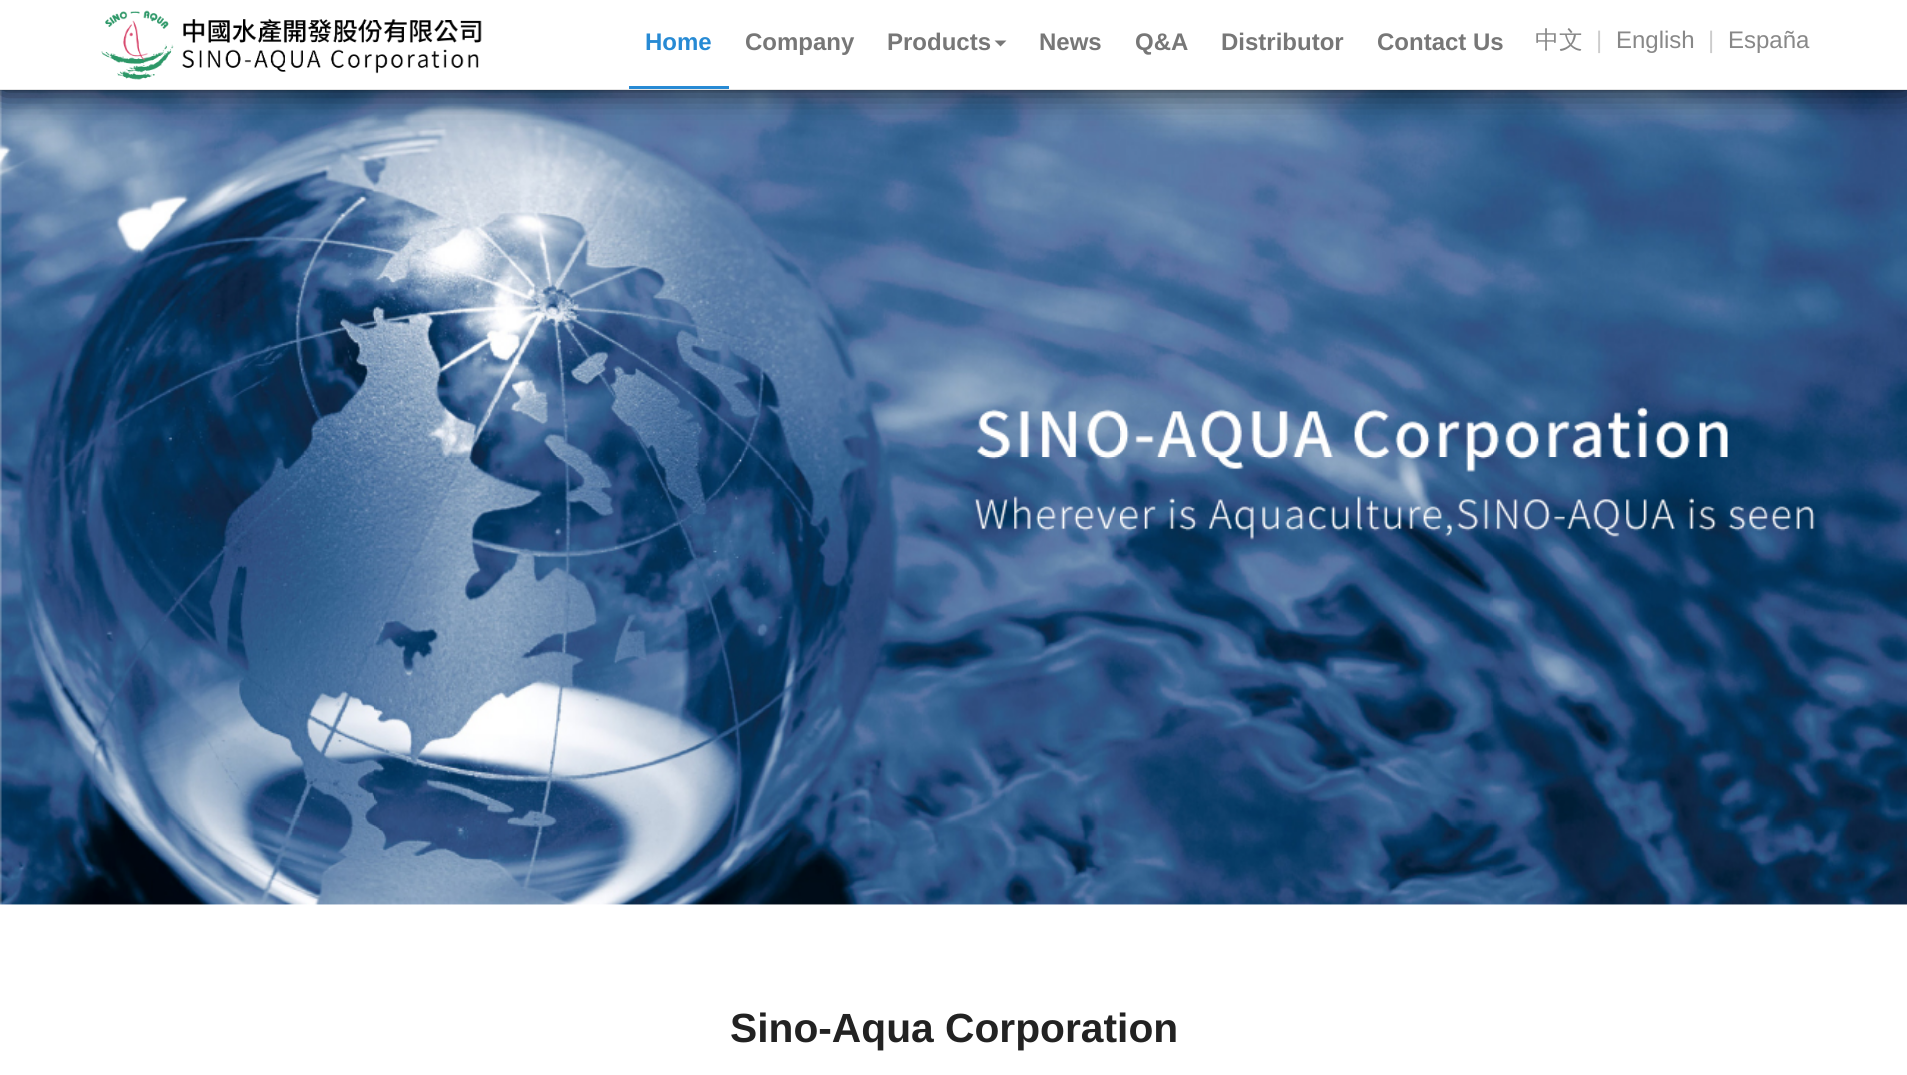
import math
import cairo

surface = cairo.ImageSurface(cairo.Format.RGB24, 1907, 1075)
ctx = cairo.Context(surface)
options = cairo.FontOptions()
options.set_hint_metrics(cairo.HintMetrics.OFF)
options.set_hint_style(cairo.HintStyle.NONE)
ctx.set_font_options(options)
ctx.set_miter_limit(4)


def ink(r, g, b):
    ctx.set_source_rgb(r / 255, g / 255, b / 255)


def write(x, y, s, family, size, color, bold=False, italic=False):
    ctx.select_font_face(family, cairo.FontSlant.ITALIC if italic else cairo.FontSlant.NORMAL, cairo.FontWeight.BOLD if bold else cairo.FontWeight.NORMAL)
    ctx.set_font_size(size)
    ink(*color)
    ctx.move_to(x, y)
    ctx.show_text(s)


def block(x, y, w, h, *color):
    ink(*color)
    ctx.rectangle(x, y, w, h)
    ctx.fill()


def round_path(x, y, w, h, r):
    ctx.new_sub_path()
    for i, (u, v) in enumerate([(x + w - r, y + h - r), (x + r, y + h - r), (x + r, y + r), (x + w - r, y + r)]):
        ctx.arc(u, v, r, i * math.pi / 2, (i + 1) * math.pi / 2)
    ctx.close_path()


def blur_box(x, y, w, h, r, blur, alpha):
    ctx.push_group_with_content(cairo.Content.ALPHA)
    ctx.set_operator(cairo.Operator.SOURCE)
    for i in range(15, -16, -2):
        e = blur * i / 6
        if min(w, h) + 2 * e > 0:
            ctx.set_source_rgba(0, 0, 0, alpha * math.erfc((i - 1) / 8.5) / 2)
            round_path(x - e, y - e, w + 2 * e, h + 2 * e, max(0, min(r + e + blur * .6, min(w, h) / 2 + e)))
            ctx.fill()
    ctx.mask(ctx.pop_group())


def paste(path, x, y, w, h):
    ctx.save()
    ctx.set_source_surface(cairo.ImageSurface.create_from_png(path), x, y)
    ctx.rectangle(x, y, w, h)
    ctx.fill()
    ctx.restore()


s1 = dict(family="Liberation Sans", size=24, color=(39, 138, 212), bold=True)
s2 = dict(family="Liberation Sans", size=24, color=(119, 119, 119), bold=True)
s3 = dict(family="WenQuanYi Zen Hei Medium", size=24, color=(136, 136, 136))
s4 = dict(family="Liberation Sans", size=24, color=(204, 204, 204))
s5 = dict(family="Liberation Sans", size=24, color=(136, 136, 136))
s6 = dict(family="Liberation Sans", size=40.75, color=(34, 34, 34), bold=True)

ink(255, 255, 255)
ctx.paint()
paste("pic2.png", 0, 90, 1907, 815)
ink(0, 0, 0)
blur_box(0, 0, 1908, 90, 0, 16.5, 0.8)
block(0, 0, 1907, 90, 255, 255, 255)
ctx.set_source_rgba(0, 0, 0, 0.1)
ctx.rectangle(0, 89, 1907, 2)
ctx.fill()
paste("pic1.png", 101, 10, 381, 70)
block(629, 86, 100, 3, 39, 138, 212)
write(645, 50, "Home", **s1)
write(745, 50, "Company", **s2)
write(887, 50, "Products", **s2)
ctx.new_path()
ctx.move_to(994.5, 40.5)
ctx.line_to(1006.5, 40.5)
ctx.line_to(1000.5, 46.5)
ctx.close_path()
ctx.fill()
write(1039, 50, "News", **s2)
write(1135, 50, "Q&A", **s2)
write(1221, 50, "Distributor", **s2)
write(1377, 50, "Contact Us", **s2)
write(1535, 48, "中文", **s3)
write(1596, 48, "|", **s4)
write(1616, 48, "English", **s5)
write(1708, 48, "|", **s4)
write(1728, 48, "España", **s5)
write(730, 1042, "Sino-Aqua Corporation", **s6)
surface.write_to_png("screenshot.png")
